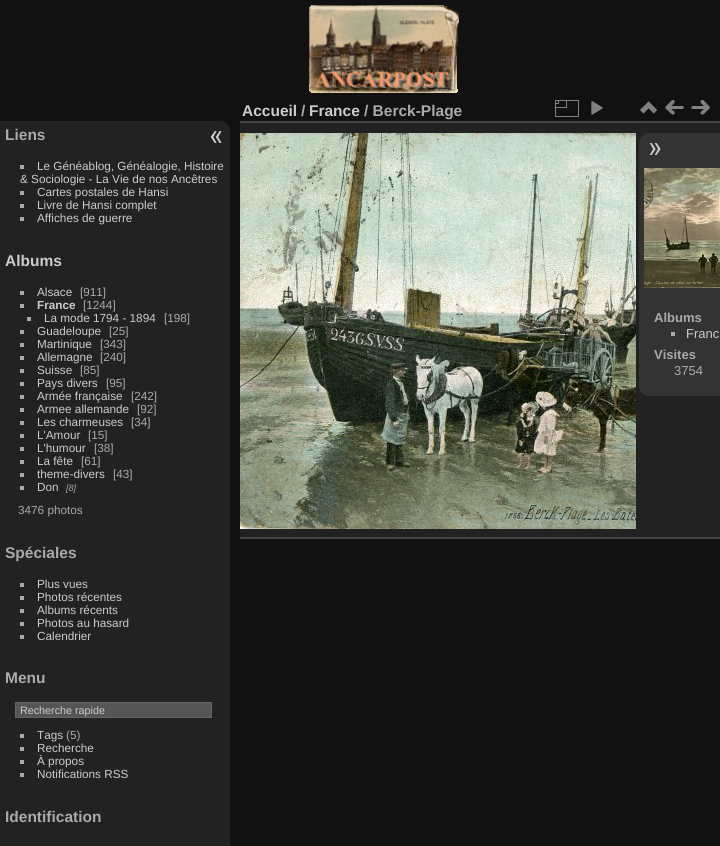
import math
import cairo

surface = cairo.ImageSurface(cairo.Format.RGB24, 720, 846)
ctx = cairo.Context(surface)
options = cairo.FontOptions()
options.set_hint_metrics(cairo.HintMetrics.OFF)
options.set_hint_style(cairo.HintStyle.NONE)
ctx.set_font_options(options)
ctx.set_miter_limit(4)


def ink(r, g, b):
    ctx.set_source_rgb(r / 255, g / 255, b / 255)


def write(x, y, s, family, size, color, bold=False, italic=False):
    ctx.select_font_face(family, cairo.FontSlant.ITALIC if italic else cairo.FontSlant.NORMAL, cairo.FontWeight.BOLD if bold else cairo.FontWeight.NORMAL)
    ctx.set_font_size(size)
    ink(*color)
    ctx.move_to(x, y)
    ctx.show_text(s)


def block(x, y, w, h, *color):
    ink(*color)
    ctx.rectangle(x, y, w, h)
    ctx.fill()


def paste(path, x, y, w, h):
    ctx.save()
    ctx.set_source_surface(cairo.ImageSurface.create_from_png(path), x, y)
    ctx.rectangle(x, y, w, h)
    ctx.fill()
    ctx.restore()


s1 = dict(family="Liberation Sans", size=15.5, color=(170, 170, 170), bold=True)
s2 = dict(family="Liberation Sans", size=11.75, color=(204, 204, 204))
s3 = dict(family="Liberation Sans", size=15.5, color=(204, 204, 204), bold=True)
s4 = dict(family="Liberation Sans", size=11.75, color=(170, 170, 170))
s5 = dict(family="Liberation Sans", size=11.75, color=(204, 204, 204), bold=True)
s6 = dict(family="Liberation Sans", size=9, color=(170, 170, 170), italic=True)
s7 = dict(family="Liberation Sans", size=10.75, color=(204, 204, 204))
s8 = dict(family="Liberation Sans", size=13, color=(170, 170, 170), bold=True)
s9 = dict(family="Liberation Sans", size=13, color=(204, 204, 204))
s10 = dict(family="Liberation Sans", size=13, color=(170, 170, 170))

ink(17, 17, 17)
ctx.paint()
paste("pic1.png", 309, 5, 150, 88)
ink(34, 34, 34)
ctx.new_path()
ctx.move_to(0, 121)
ctx.line_to(220, 121)
ctx.curve_to(225.5, 121, 230, 125.5, 230, 131)
ctx.line_to(230, 846)
ctx.curve_to(230, 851.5, 225.5, 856, 220, 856)
ctx.line_to(0, 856)
ctx.close_path()
ctx.fill()
write(5, 140, "Liens", **s1)
block(20, 165, 4, 4, 170, 170, 170)
write(37, 170, "Le Généablog, Généalogie, Histoire", **s2)
write(20, 183, "& Sociologie - La Vie de nos Ancêtres", **s2)
block(20, 191, 4, 4, 170, 170, 170)
write(37, 196, "Cartes postales de Hansi", **s2)
block(20, 204, 4, 4, 170, 170, 170)
write(37, 209, "Livre de Hansi complet", **s2)
block(20, 217, 4, 4, 170, 170, 170)
write(37, 222, "Affiches de guerre", **s2)
write(5, 266, "Albums", **s3)
block(20, 291, 4, 4, 170, 170, 170)
write(37, 296, "Alsace", **s2)
write(80, 296, "[911]", **s4)
block(20, 304, 4, 4, 170, 170, 170)
write(37, 309, "France", **s5)
write(83, 309, "[1244]", **s4)
block(27, 317, 4, 4, 170, 170, 170)
write(44, 322, "La mode 1794 - 1894", **s2)
write(164, 322, "[198]", **s4)
block(20, 330, 4, 4, 170, 170, 170)
write(37, 335, "Guadeloupe", **s2)
write(109, 335, "[25]", **s4)
block(20, 343, 4, 4, 170, 170, 170)
write(37, 348, "Martinique", **s2)
write(100, 348, "[343]", **s4)
block(20, 356, 4, 4, 170, 170, 170)
write(37, 361, "Allemagne", **s2)
write(100, 361, "[240]", **s4)
block(20, 369, 4, 4, 170, 170, 170)
write(37, 374, "Suisse", **s2)
write(80, 374, "[85]", **s4)
block(20, 382, 4, 4, 170, 170, 170)
write(37, 387, "Pays divers", **s2)
write(106, 387, "[95]", **s4)
block(20, 395, 4, 4, 170, 170, 170)
write(37, 400, "Armée française", **s2)
write(131, 400, "[242]", **s4)
block(20, 408, 4, 4, 170, 170, 170)
write(37, 413, "Armee allemande", **s2)
write(137, 413, "[92]", **s4)
block(20, 421, 4, 4, 170, 170, 170)
write(37, 426, "Les charmeuses", **s2)
write(131, 426, "[34]", **s4)
block(20, 434, 4, 4, 170, 170, 170)
write(37, 439, "L'Amour", **s2)
write(88, 439, "[15]", **s4)
block(20, 447, 4, 4, 170, 170, 170)
write(37, 452, "L'humour", **s2)
write(94, 452, "[38]", **s4)
block(20, 460, 4, 4, 170, 170, 170)
write(37, 465, "La fête", **s2)
write(81, 465, "[61]", **s4)
block(20, 473, 4, 4, 170, 170, 170)
write(37, 478, "theme-divers", **s2)
write(113, 478, "[43]", **s4)
block(20, 486, 4, 4, 170, 170, 170)
write(37, 491, "Don", **s2)
write(66, 491, "[8]", **s6)
write(18, 514, "3476 photos", **s4)
write(5, 558, "Spéciales", **s1)
block(20, 583, 4, 4, 170, 170, 170)
write(37, 588, "Plus vues", **s2)
block(20, 596, 4, 4, 170, 170, 170)
write(37, 601, "Photos récentes", **s2)
block(20, 609, 4, 4, 170, 170, 170)
write(37, 614, "Albums récents", **s2)
block(20, 622, 4, 4, 170, 170, 170)
write(37, 627, "Photos au hasard", **s2)
block(20, 635, 4, 4, 170, 170, 170)
write(37, 640, "Calendrier", **s2)
write(5, 683, "Menu", **s1)
ink(85, 85, 85)
ctx.rectangle(15.5, 702.5, 196, 15)
ctx.fill_preserve()
ink(102, 102, 102)
ctx.set_line_width(1)
ctx.stroke()
write(20, 714, "Recherche rapide", **s7)
block(20, 734, 4, 4, 170, 170, 170)
write(37, 739, "Tags", **s2)
write(66, 739, "(5)", **s4)
block(20, 747, 4, 4, 170, 170, 170)
write(37, 752, "Recherche", **s2)
block(20, 760, 4, 4, 170, 170, 170)
write(37, 765, "À propos", **s2)
block(20, 773, 4, 4, 170, 170, 170)
write(37, 778, "Notifications RSS", **s2)
write(5, 822, "Identification", **s1)
block(240, 123, 480, 414, 34, 34, 34)
block(240, 537, 480, 2, 68, 68, 68)
block(240, 121, 480, 2, 68, 68, 68)
write(242, 116, "Accueil", **s3)
write(301, 116, "/", **s1)
write(309, 116, "France", **s3)
write(364, 116, "/ Berck-Plage", **s1)
paste("pic2.png", 555, 100, 24, 17)
paste("pic3.png", 591, 101, 12, 14)
paste("pic4.png", 640, 101, 17, 13)
paste("pic5.png", 665, 100, 19, 15)
paste("pic6.png", 691, 100, 19, 15)
paste("pic7.png", 240, 133, 396, 396)
ink(51, 51, 51)
ctx.new_path()
ctx.move_to(649, 133)
ctx.line_to(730, 133)
ctx.line_to(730, 396)
ctx.line_to(649, 396)
ctx.curve_to(643.5, 396, 639, 391.5, 639, 386)
ctx.line_to(639, 143)
ctx.curve_to(639, 137.5, 643.5, 133, 649, 133)
ctx.close_path()
ctx.fill()
paste("pic8.png", 649, 143, 12, 12)
paste("pic9.png", 644, 168, 76, 120)
write(654, 322, "Albums", **s8)
block(671, 332, 4, 4, 170, 170, 170)
write(686, 338, "Franc", **s9)
write(654, 359, "Visites", **s8)
write(674, 375, "3754", **s10)
paste("pic10.png", 210, 131, 12, 12)
surface.write_to_png("screenshot.png")
